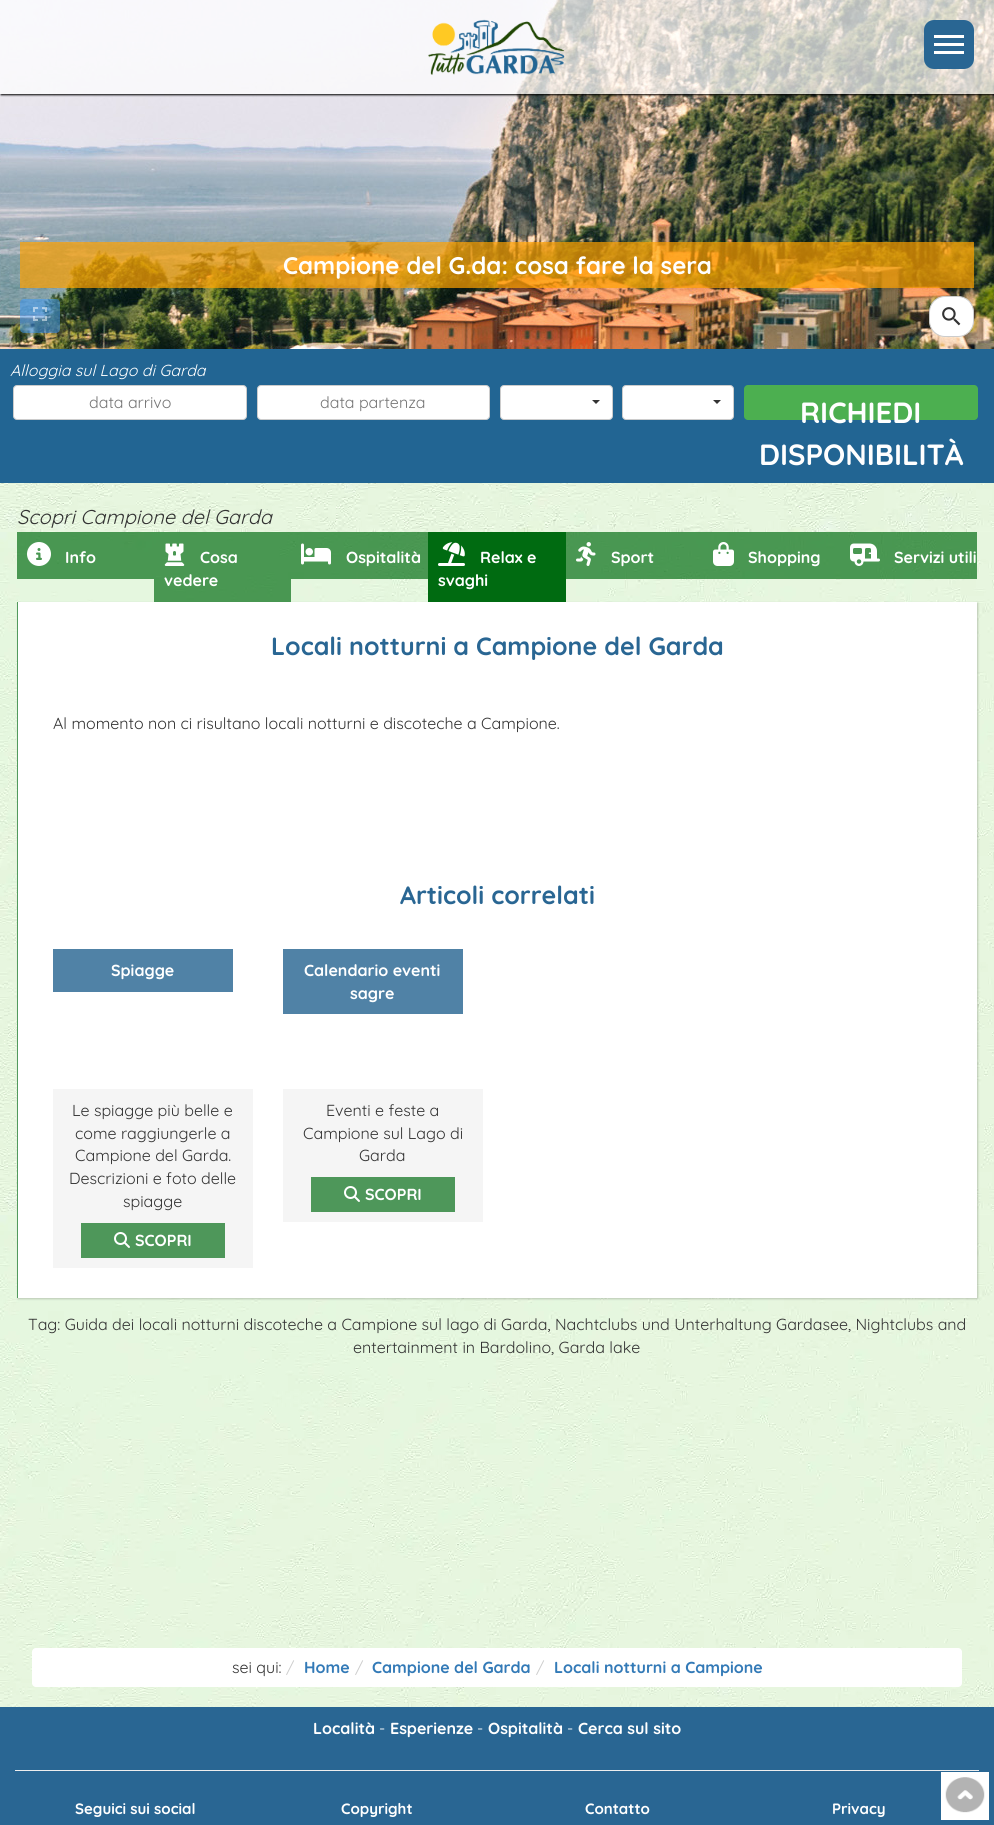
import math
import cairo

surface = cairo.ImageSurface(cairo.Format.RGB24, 994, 1825)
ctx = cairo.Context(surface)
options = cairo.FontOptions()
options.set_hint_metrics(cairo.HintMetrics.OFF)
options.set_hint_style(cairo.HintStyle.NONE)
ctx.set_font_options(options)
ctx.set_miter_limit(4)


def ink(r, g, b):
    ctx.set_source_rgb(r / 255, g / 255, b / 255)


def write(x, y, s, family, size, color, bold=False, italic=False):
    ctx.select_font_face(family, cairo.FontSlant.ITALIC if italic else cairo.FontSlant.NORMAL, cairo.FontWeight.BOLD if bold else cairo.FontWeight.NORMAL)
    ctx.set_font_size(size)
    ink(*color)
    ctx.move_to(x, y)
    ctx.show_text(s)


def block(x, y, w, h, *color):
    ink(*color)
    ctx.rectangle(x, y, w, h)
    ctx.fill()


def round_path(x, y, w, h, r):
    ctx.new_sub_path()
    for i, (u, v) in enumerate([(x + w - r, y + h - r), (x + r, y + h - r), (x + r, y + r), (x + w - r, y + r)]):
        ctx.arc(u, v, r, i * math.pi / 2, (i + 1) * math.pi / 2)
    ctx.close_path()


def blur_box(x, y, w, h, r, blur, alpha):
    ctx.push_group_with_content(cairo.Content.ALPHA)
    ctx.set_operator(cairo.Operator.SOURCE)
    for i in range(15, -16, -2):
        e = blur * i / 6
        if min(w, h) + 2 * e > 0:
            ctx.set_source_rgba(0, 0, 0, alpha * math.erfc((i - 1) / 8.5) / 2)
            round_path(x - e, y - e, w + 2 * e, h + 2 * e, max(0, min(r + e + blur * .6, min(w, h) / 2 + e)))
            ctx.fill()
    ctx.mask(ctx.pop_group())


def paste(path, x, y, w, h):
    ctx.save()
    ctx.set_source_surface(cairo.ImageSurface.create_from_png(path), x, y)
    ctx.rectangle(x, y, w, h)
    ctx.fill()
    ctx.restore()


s1 = dict(family="Quicksand", size=24, color=(255, 255, 255), bold=True)
s2 = dict(family="Quicksand", size=16, color=(255, 255, 255), italic=True)
s3 = dict(family="Quicksand", size=16, color=(117, 117, 117))
s4 = dict(family="Quicksand", size=29.25, color=(255, 255, 255), bold=True)
s5 = dict(family="Quicksand", size=20, color=(51, 51, 51), italic=True)
s6 = dict(family="Quicksand", size=16, color=(255, 255, 255), bold=True)
s7 = dict(family="Quicksand", size=25, color=(41, 102, 147), bold=True)
s8 = dict(family="Quicksand", size=16, color=(51, 51, 51))
s9 = dict(family="Quicksand", size=16, color=(204, 204, 204))
s10 = dict(family="Quicksand", size=16, color=(51, 122, 183), bold=True)
s11 = dict(family="Quicksand", size=16, color=(255, 255, 255))
s12 = dict(family="Quicksand", size=15, color=(255, 255, 255), bold=True)

ink(255, 255, 255)
ctx.paint()
paste("pic1.png", 0, 483, 994, 1224)
paste("pic2.png", 0, 0, 994, 349)
ctx.save()
ctx.rectangle(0, 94, 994, 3)
ctx.clip()
ink(0, 0, 0)
blur_box(1, 1, 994, 94, 0, 1, 1)
ctx.restore()
ctx.set_source_rgba(1, 1, 1, 0.7)
ctx.rectangle(0, 0, 994, 94)
ctx.fill()
paste("pic3.png", 428, 19, 137, 56)
ink(41, 102, 147)
round_path(924, 20, 50, 49, 10)
ctx.fill()
block(934, 35, 30, 3, 255, 255, 255)
block(934, 43, 30, 3, 255, 255, 255)
block(934, 51, 30, 3, 255, 255, 255)
ctx.set_source_rgba(1, 0.635, 0, 0.7)
ctx.rectangle(20, 242, 954, 46)
ctx.fill()
write(283, 274, "Campione del G.da: cosa fare la sera", **s1)
ctx.set_source_rgba(0.247, 0.616, 1, 0.5)
round_path(20, 299, 40, 34, 4)
ctx.fill()
paste("pic4.png", 33, 307, 14, 14)
ink(255, 255, 255)
round_path(929.5, 296.5, 44, 40, 15.5)
ctx.fill_preserve()
ink(204, 204, 204)
ctx.set_line_width(1)
ctx.stroke()
paste("pic5.png", 942, 307, 19, 19)
block(0, 349, 994, 134, 34, 101, 147)
write(10, 376, "Alloggia sul Lago di Garda", **s2)
round_path(13.5, 385.5, 233, 34, 3.5)
ctx.fill_preserve()
ink(204, 204, 204)
ctx.stroke()
write(89, 408, "data arrivo", **s3)
ink(255, 255, 255)
round_path(257.5, 385.5, 232, 34, 3.5)
ctx.fill_preserve()
ink(204, 204, 204)
ctx.stroke()
write(320, 408, "data partenza", **s3)
ink(255, 255, 255)
round_path(500.5, 385.5, 112, 34, 3.5)
ctx.fill_preserve()
ink(204, 204, 204)
ctx.stroke()
ink(51, 51, 51)
ctx.new_path()
ctx.move_to(592, 400)
ctx.line_to(600, 400)
ctx.line_to(596, 404)
ctx.close_path()
ctx.fill()
ink(255, 255, 255)
round_path(622.5, 385.5, 111, 34, 3.5)
ctx.fill_preserve()
ink(204, 204, 204)
ctx.stroke()
ink(51, 51, 51)
ctx.new_path()
ctx.move_to(713, 400)
ctx.line_to(721, 400)
ctx.line_to(717, 404)
ctx.close_path()
ctx.fill()
ink(76, 175, 80)
round_path(744, 385, 234, 35, 4)
ctx.fill()
write(800, 423, "RICHIEDI", **s4)
write(759, 465, "DISPONIBILITÀ", **s4)
write(17, 524, "Scopri Campione del Garda", **s5)
ctx.set_source_rgba(0, 0.42, 0.067, 0.68)
ctx.rectangle(17, 532, 137, 47)
ctx.fill()
paste("pic6.png", 27, 542, 24, 24)
write(65, 563, "Info", **s6)
ink(0, 0, 0)
blur_box(18, 603, 960, 696, 0, 1, 0.2)
ctx.set_source_rgba(0, 0.42, 0.067, 0.68)
ctx.rectangle(154, 532, 137, 70)
ctx.fill()
paste("pic7.png", 164, 543, 21, 23)
write(200, 563, "Cosa", **s6)
write(164, 586, "vedere", **s6)
ctx.set_source_rgba(0, 0.42, 0.067, 0.68)
ctx.rectangle(291, 532, 137, 47)
ctx.fill()
paste("pic8.png", 301, 543, 30, 22)
write(346, 563, "Ospitalità", **s6)
block(428, 532, 138, 70, 0, 107, 17)
paste("pic9.png", 438, 542, 27, 24)
write(480, 563, "Relax e", **s6)
write(438, 586, "svaghi", **s6)
ctx.set_source_rgba(0, 0.42, 0.067, 0.68)
ctx.rectangle(566, 532, 137, 47)
ctx.fill()
paste("pic10.png", 576, 542, 20, 24)
write(611, 563, "Sport", **s6)
ctx.set_source_rgba(0, 0.42, 0.067, 0.68)
ctx.rectangle(703, 532, 137, 47)
ctx.fill()
paste("pic11.png", 713, 542, 21, 24)
write(748, 563, "Shopping", **s6)
ctx.set_source_rgba(0, 0.42, 0.067, 0.68)
ctx.rectangle(840, 532, 137, 47)
ctx.fill()
paste("pic12.png", 850, 543, 30, 23)
write(894, 563, "Servizi utili", **s6)
block(18, 602, 959, 696, 255, 255, 255)
block(17, 602, 1, 696, 82, 154, 93)
write(271, 655, "Locali notturni a Campione del Garda", **s7)
write(53, 729, "Al momento non ci risultano locali notturni e discoteche a Campione.", **s8)
write(400, 904, "Articoli correlati", **s7)
block(53, 949, 180, 43, 80, 130, 166)
write(111, 976, "Spiagge", **s6)
block(53, 1089, 200, 179, 245, 245, 245)
write(72, 1116, "Le spiagge più belle e", **s8)
write(75, 1139, "come raggiungerle a", **s8)
write(75, 1161, "Campione del Garda.", **s8)
write(69, 1184, "Descrizioni e foto delle", **s8)
write(123, 1207, "spiagge", **s8)
block(81, 1223, 144, 35, 78, 151, 90)
paste("pic13.png", 114, 1232, 16, 16)
write(135, 1246, "SCOPRI", **s6)
block(283, 949, 180, 65, 80, 130, 166)
write(304, 976, "Calendario eventi", **s6)
write(350, 999, "sagre", **s6)
block(283, 1089, 200, 133, 245, 245, 245)
write(326, 1116, "Eventi e feste a", **s8)
write(303, 1139, "Campione sul Lago di", **s8)
write(359, 1161, "Garda", **s8)
block(311, 1177, 144, 35, 78, 151, 90)
paste("pic13.png", 344, 1186, 16, 16)
write(365, 1200, "SCOPRI", **s6)
write(28, 1330, "Tag: Guida dei locali notturni discoteche a Campione sul lago di Garda, Nachtclubs und Unterhaltung Gardasee, Nightclubs and", **s8)
write(353, 1353, "entertainment in Bardolino, Garda lake", **s8)
ink(255, 255, 255)
round_path(32, 1648, 930, 39, 4)
ctx.fill()
write(232, 1673, "sei qui:", **s8)
write(286, 1673, "/", **s9)
write(304, 1673, "Home", **s10)
write(355, 1673, "/", **s9)
write(372, 1673, "Campione del Garda", **s10)
write(536, 1673, "/", **s9)
write(554, 1673, "Locali notturni a Campione", **s10)
block(0, 1707, 994, 118, 41, 102, 147)
write(313, 1734, "Località", **s6)
write(379, 1734, "-", **s11)
write(390, 1734, "Esperienze", **s6)
write(477, 1734, "-", **s11)
write(488, 1734, "Ospitalità", **s6)
write(567, 1734, "-", **s11)
write(578, 1734, "Cerca sul sito", **s6)
block(15, 1770, 964, 1, 238, 238, 238)
write(75, 1814, "Seguici sui social", **s12)
write(341, 1814, "Copyright", **s12)
write(585, 1814, "Contatto", **s12)
write(832, 1814, "Privacy", **s12)
paste("pic14.png", 941, 1772, 48, 48)
surface.write_to_png("screenshot.png")
